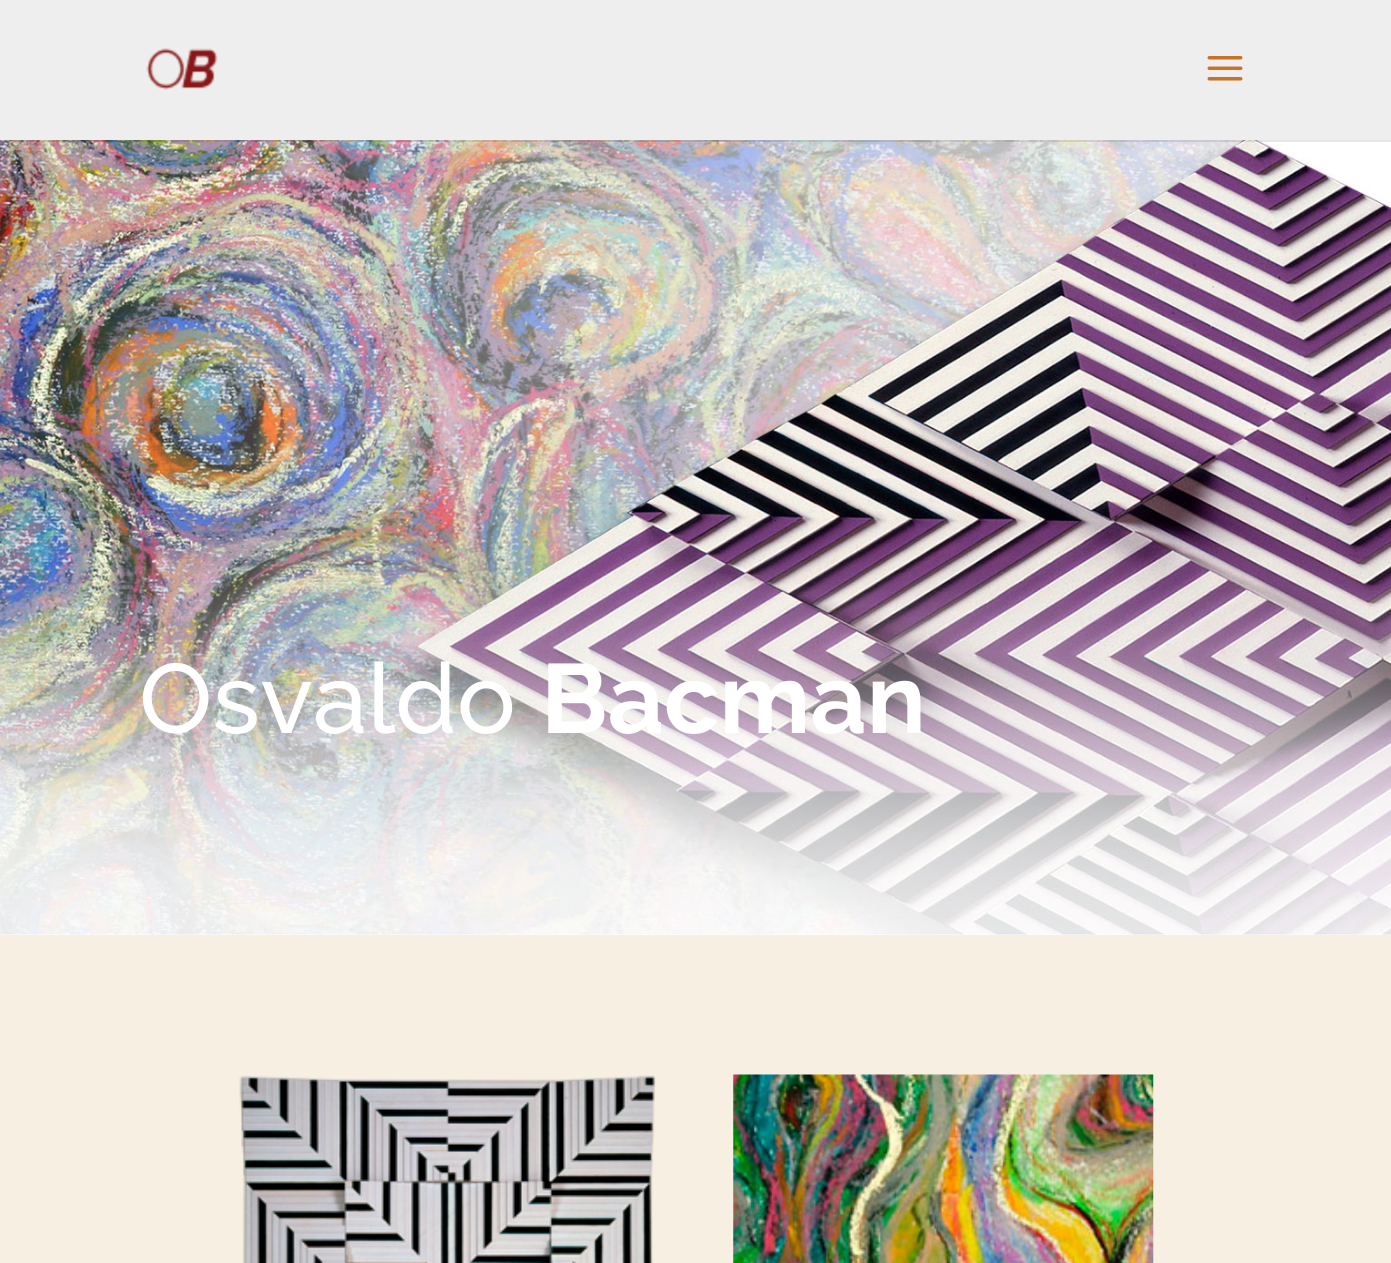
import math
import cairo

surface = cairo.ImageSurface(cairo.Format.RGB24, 1391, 1263)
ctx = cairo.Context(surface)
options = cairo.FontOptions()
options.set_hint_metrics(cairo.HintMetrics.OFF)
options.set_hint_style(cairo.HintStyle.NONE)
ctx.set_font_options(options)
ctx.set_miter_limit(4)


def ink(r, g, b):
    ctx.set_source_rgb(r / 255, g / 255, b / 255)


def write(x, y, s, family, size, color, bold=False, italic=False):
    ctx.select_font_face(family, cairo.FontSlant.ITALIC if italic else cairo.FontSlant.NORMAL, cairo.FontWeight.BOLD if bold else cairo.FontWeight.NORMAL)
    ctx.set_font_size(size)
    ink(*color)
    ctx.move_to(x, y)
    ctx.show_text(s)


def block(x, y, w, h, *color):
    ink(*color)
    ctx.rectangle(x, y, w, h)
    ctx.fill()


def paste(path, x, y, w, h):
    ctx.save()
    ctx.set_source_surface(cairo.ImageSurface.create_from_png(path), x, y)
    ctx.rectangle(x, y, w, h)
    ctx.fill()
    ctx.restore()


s1 = dict(family="Raleway Medium", size=98, color=(255, 255, 255))
s2 = dict(family="Raleway", size=98, color=(255, 255, 255), bold=True)

ink(255, 255, 255)
ctx.paint()
paste("pic3.png", 0, 140, 1391, 795)
ctx.set_source_rgba(0, 0, 0, 0.1)
ctx.rectangle(0, 140, 1391, 2)
ctx.fill()
block(0, 0, 1391, 140, 238, 238, 238)
paste("pic1.png", 146, 48, 72, 42)
paste("pic2.png", 1207, 56, 36, 25)
write(139, 733, "Osvaldo", **s1)
write(541, 733, "Bacman", **s2)
block(0, 935, 1391, 328, 247, 240, 226)
paste("pic4.png", 239, 1075, 417, 188)
paste("pic5.png", 733, 1074, 421, 189)
surface.write_to_png("screenshot.png")
